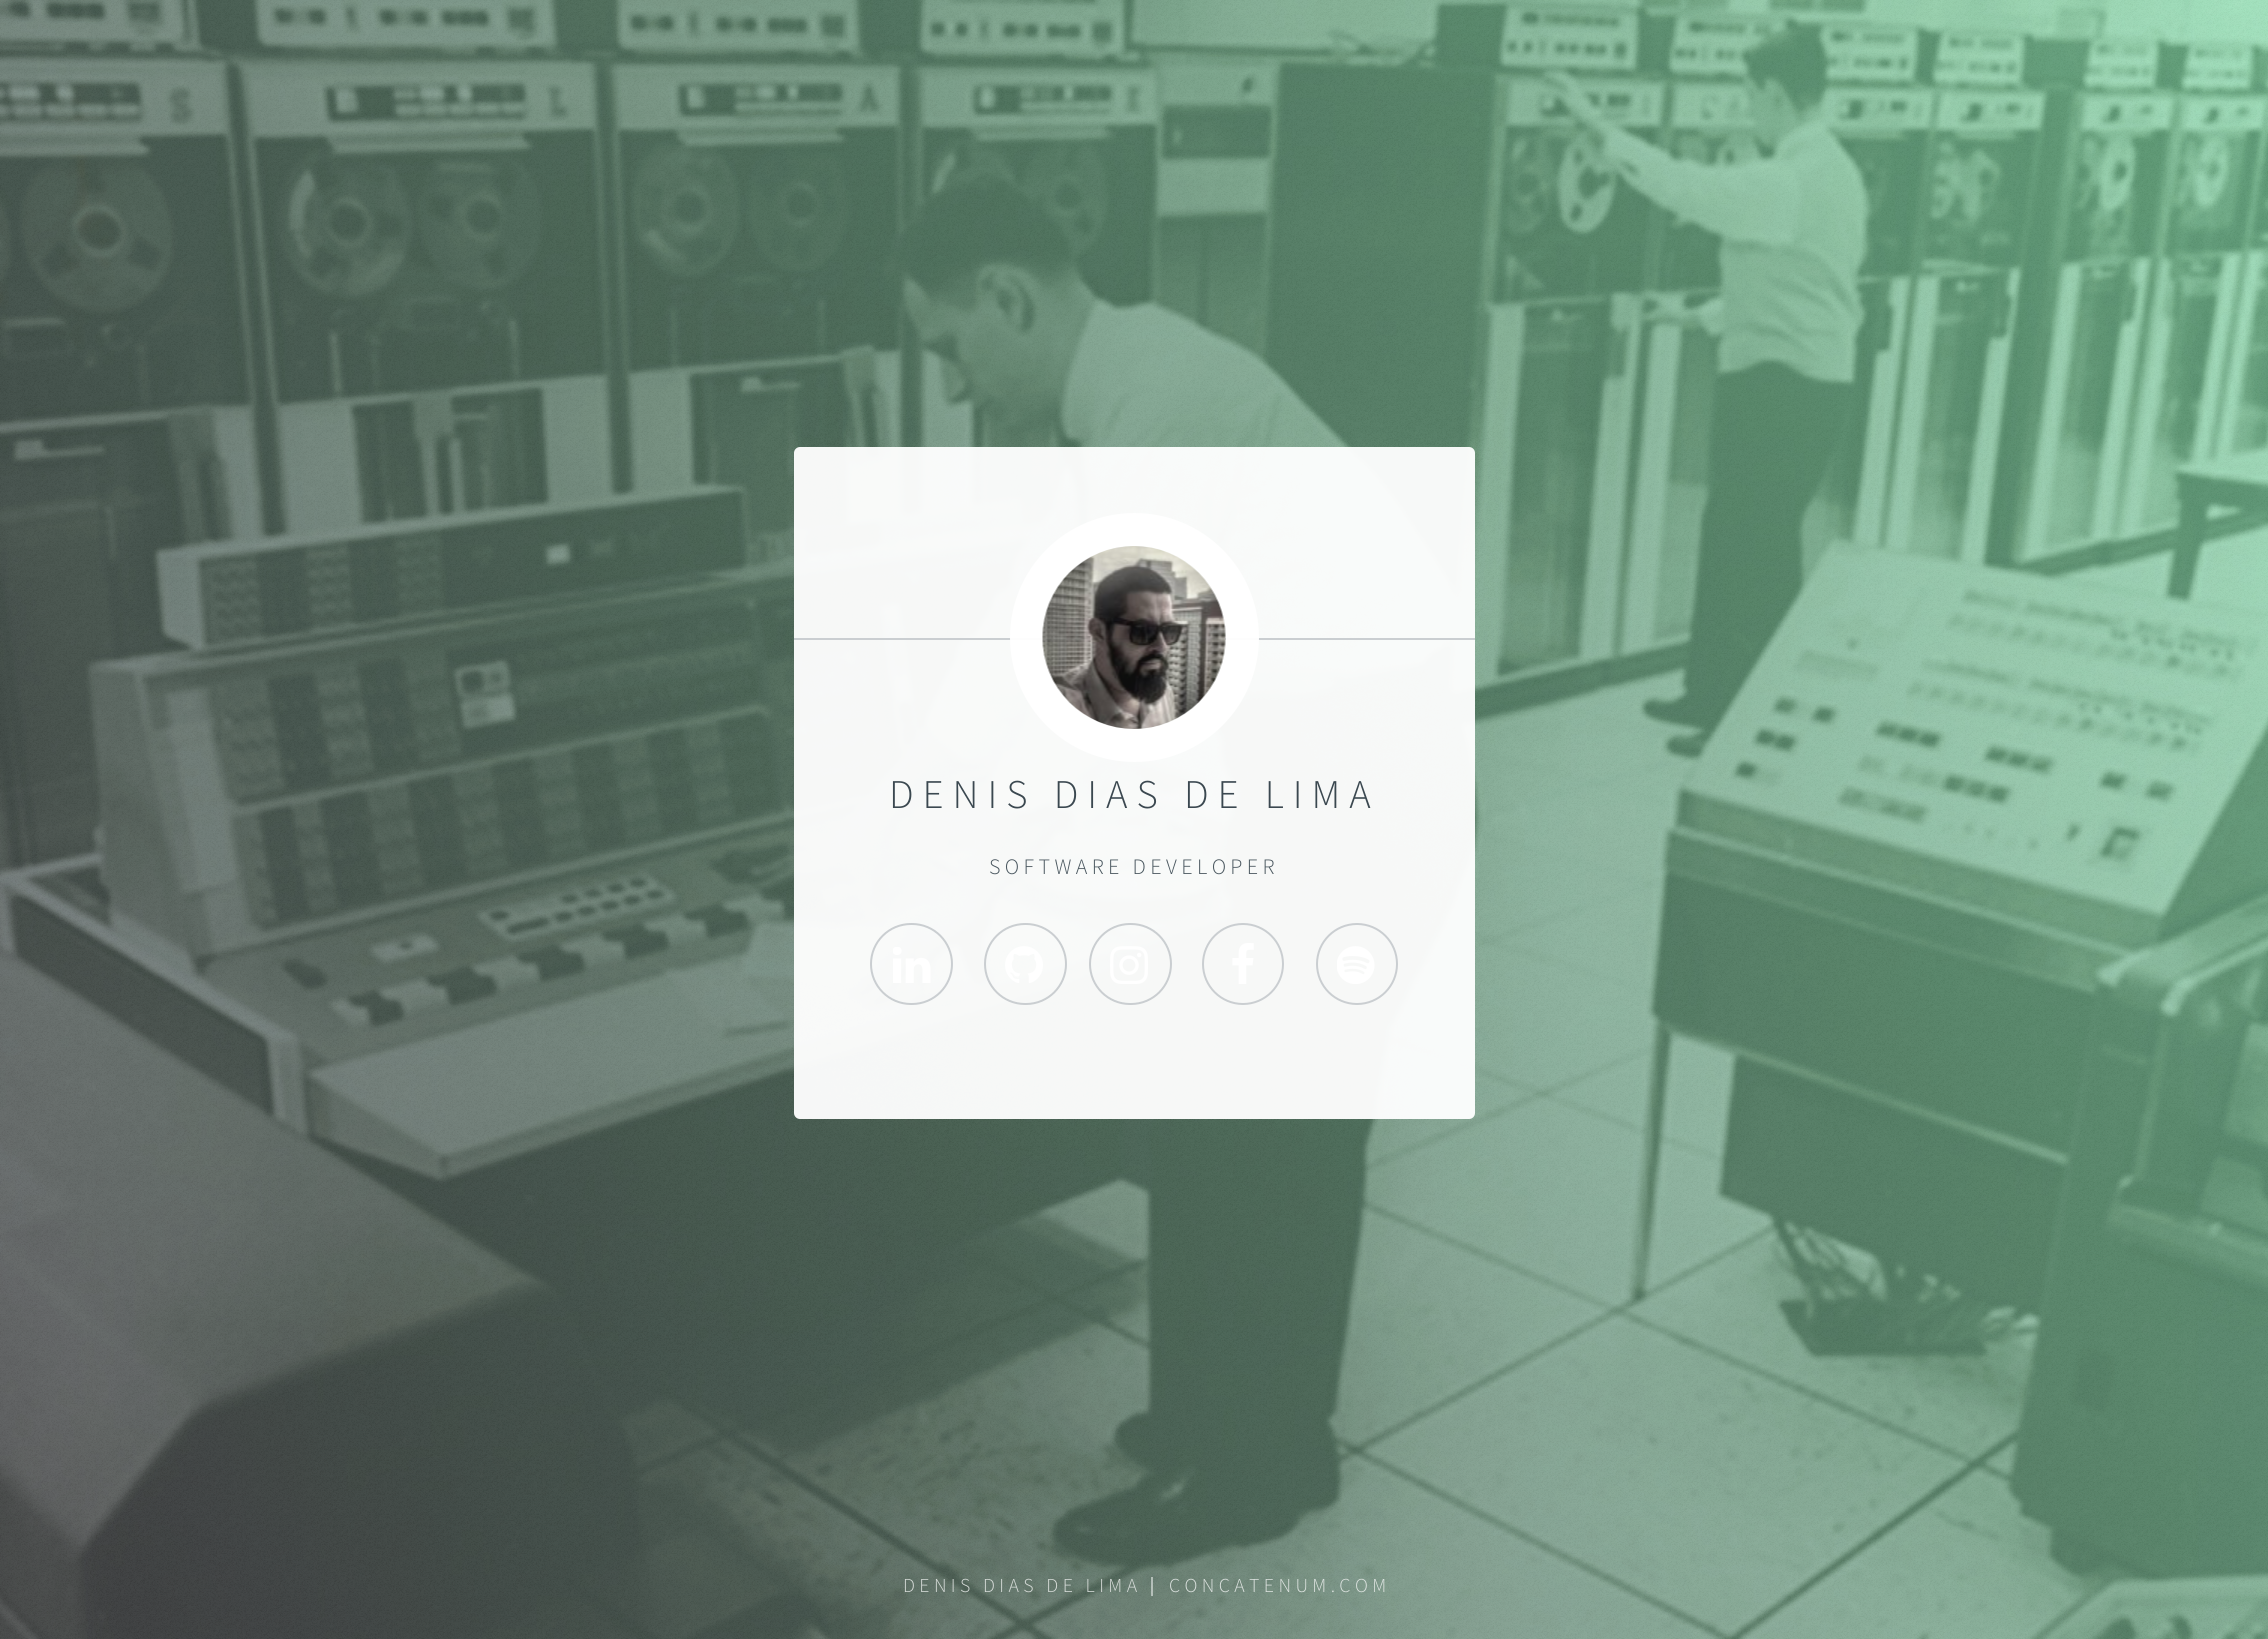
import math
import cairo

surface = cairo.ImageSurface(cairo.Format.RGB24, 2268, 1639)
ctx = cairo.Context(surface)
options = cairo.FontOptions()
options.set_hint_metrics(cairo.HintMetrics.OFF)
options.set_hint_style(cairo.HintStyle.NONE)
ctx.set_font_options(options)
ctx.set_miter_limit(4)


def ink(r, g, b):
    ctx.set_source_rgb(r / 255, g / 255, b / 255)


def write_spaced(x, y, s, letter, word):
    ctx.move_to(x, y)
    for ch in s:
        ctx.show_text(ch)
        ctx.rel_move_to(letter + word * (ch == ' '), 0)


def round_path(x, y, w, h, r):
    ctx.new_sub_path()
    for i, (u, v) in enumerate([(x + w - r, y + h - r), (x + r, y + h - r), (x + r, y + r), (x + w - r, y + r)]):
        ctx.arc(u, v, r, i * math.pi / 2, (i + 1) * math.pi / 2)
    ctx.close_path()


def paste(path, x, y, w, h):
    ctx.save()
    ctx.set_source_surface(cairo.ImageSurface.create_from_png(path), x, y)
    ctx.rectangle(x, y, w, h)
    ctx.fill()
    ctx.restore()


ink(255, 255, 255)
ctx.paint()
paste("pic1.png", 0, 0, 2268, 1639)
ctx.set_source_rgba(1, 1, 1, 0.95)
round_path(794, 447, 681, 672, 6)
ctx.fill()
ctx.set_source_rgba(0.784, 0.8, 0.812, 0.95)
ctx.rectangle(794, 638, 681, 2)
ctx.fill()
ctx.arc(1134.5, 637.5, 108, 0, 2 * math.pi)
ctx.set_source_rgba(1, 1, 1, 0.95)
ctx.set_line_width(33)
ctx.stroke()
paste("pic2.png", 1042, 546, 184, 183)
ctx.select_font_face("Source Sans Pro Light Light")
ctx.set_font_size(40.75)
ink(59, 72, 80)
write_spaced(889, 808, "DENIS DIAS DE LIMA", 9, 0)
ctx.set_font_size(22)
ink(74, 87, 95)
write_spaced(989, 874, "SOFTWARE DEVELOPER", 4.4, 0)
round_path(871, 924, 81, 80, 40)
ctx.set_source_rgba(0.784, 0.8, 0.812, 0.95)
ctx.set_line_width(2)
ctx.stroke()
paste("pic3.png", 893, 947, 38, 36)
round_path(985, 924, 81, 80, 40)
ctx.stroke()
paste("pic4.png", 1005, 946, 38, 37)
round_path(1090, 924, 81, 80, 40)
ctx.stroke()
paste("pic5.png", 1110, 946, 38, 38)
ctx.arc(1243, 964, 40, 0, 2 * math.pi)
ink(202, 206, 209)
ctx.stroke()
paste("pic6.png", 1232, 943, 22, 41)
ctx.arc(1357, 964, 40, 0, 2 * math.pi)
ctx.stroke()
paste("pic7.png", 1337, 946, 38, 38)
ctx.set_font_size(19.75)
ink(215, 220, 217)
write_spaced(903, 1592, "DENIS DIAS DE LIMA", 4.4, 0)
ctx.set_source_rgba(1, 1, 1, 0.5)
ctx.rectangle(1151, 1577, 2, 19)
ctx.fill()
ink(220, 226, 223)
write_spaced(1169, 1592, "CONCATENUM.COM", 4.4, 0)
surface.write_to_png("screenshot.png")
